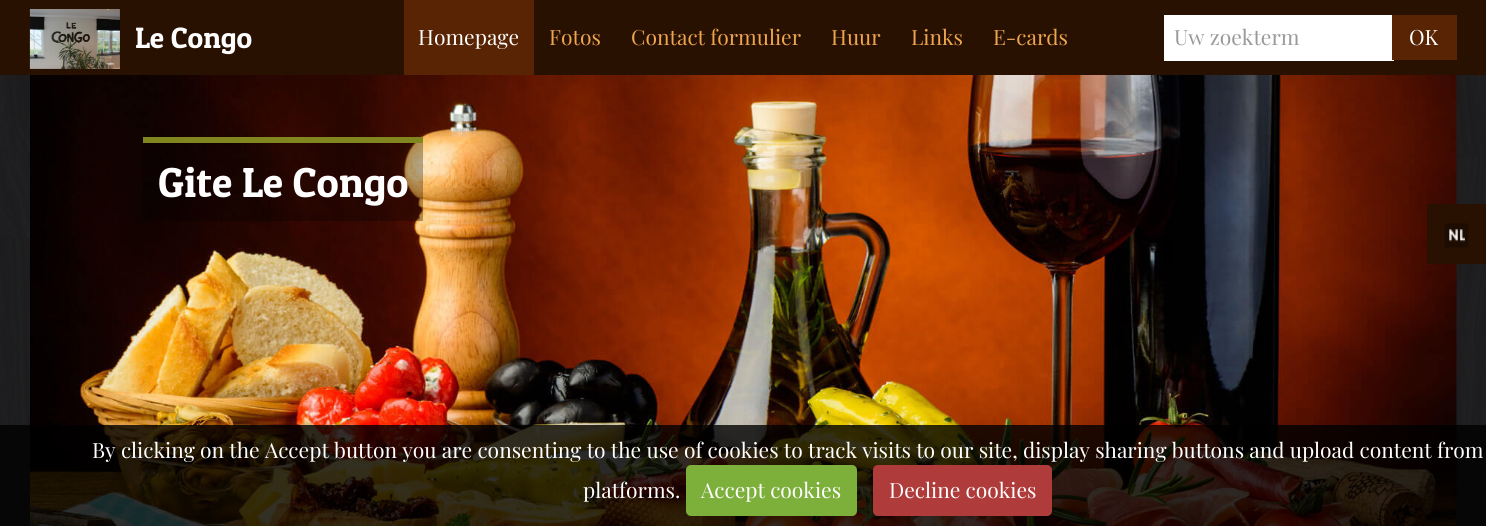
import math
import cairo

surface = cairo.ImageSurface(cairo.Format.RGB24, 1486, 526)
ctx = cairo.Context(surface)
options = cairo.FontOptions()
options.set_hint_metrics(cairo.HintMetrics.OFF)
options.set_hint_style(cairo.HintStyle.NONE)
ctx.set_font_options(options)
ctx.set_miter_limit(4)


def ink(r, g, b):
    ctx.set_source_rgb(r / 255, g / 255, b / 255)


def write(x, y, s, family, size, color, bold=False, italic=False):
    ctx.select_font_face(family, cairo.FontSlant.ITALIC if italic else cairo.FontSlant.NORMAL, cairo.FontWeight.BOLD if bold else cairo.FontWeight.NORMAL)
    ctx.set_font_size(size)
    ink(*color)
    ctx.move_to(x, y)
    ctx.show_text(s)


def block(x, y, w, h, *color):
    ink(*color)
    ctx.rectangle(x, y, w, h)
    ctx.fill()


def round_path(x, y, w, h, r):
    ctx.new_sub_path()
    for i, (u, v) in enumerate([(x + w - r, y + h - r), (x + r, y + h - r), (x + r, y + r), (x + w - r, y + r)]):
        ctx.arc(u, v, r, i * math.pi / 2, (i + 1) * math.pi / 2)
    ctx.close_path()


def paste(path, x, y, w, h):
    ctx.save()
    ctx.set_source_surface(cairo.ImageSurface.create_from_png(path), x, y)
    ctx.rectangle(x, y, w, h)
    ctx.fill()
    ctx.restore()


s1 = dict(family="Patua One", size=29.5, color=(255, 255, 255))
s2 = dict(family="Playfair Display", size=21, color=(255, 255, 255))
s3 = dict(family="Playfair Display", size=21, color=(237, 165, 78))
s4 = dict(family="Playfair Display", size=21, color=(153, 153, 153))
s5 = dict(family="Patua One", size=42, color=(255, 255, 255))

ink(34, 34, 36)
ctx.paint()
paste("pic1.png", 0, 75, 1486, 451)
block(0, 0, 1486, 75, 41, 17, 1)
paste("pic2.png", 29, 9, 91, 60)
write(135, 48, "Le Congo", **s1)
block(404, 0, 130, 75, 89, 36, 3)
write(418, 45, "Homepage", **s2)
write(549, 45, "Fotos", **s3)
write(631, 45, "Contact formulier", **s3)
write(831, 45, "Huur", **s3)
write(911, 45, "Links", **s3)
write(993, 45, "E-cards", **s3)
block(1164, 15, 228, 44, 255, 255, 255)
block(1164, 59, 230, 2, 255, 255, 255)
write(1174, 45, "Uw zoekterm", **s4)
block(1392, 15, 65, 45, 89, 36, 3)
write(1409, 45, "OK", **s2)
paste("pic3.png", 30, 75, 1427, 451)
ctx.set_source_rgba(0, 0, 0, 0.3)
ctx.rectangle(143, 143, 280, 78)
ctx.fill()
block(143, 137, 280, 6, 129, 134, 31)
write(158, 197, "Gite Le Congo", **s5)
block(1427, 204, 59, 60, 41, 17, 1)
paste("pic4.png", 1444, 223, 25, 25)
ctx.set_source_rgba(0, 0, 0, 0.8)
ctx.rectangle(0, 425, 1486, 101)
ctx.fill()
write(92, 458, "By clicking on the Accept button you are consenting to the use of cookies to track visits to our site, display sharing buttons and upload content from", **s2)
write(583, 498, "platforms.", **s2)
ink(125, 175, 59)
round_path(686, 465, 171, 51, 5)
ctx.fill()
write(701, 498, "Accept cookies", **s2)
ink(175, 59, 59)
round_path(873, 465, 179, 51, 5)
ctx.fill()
write(889, 498, "Decline cookies", **s2)
surface.write_to_png("screenshot.png")
